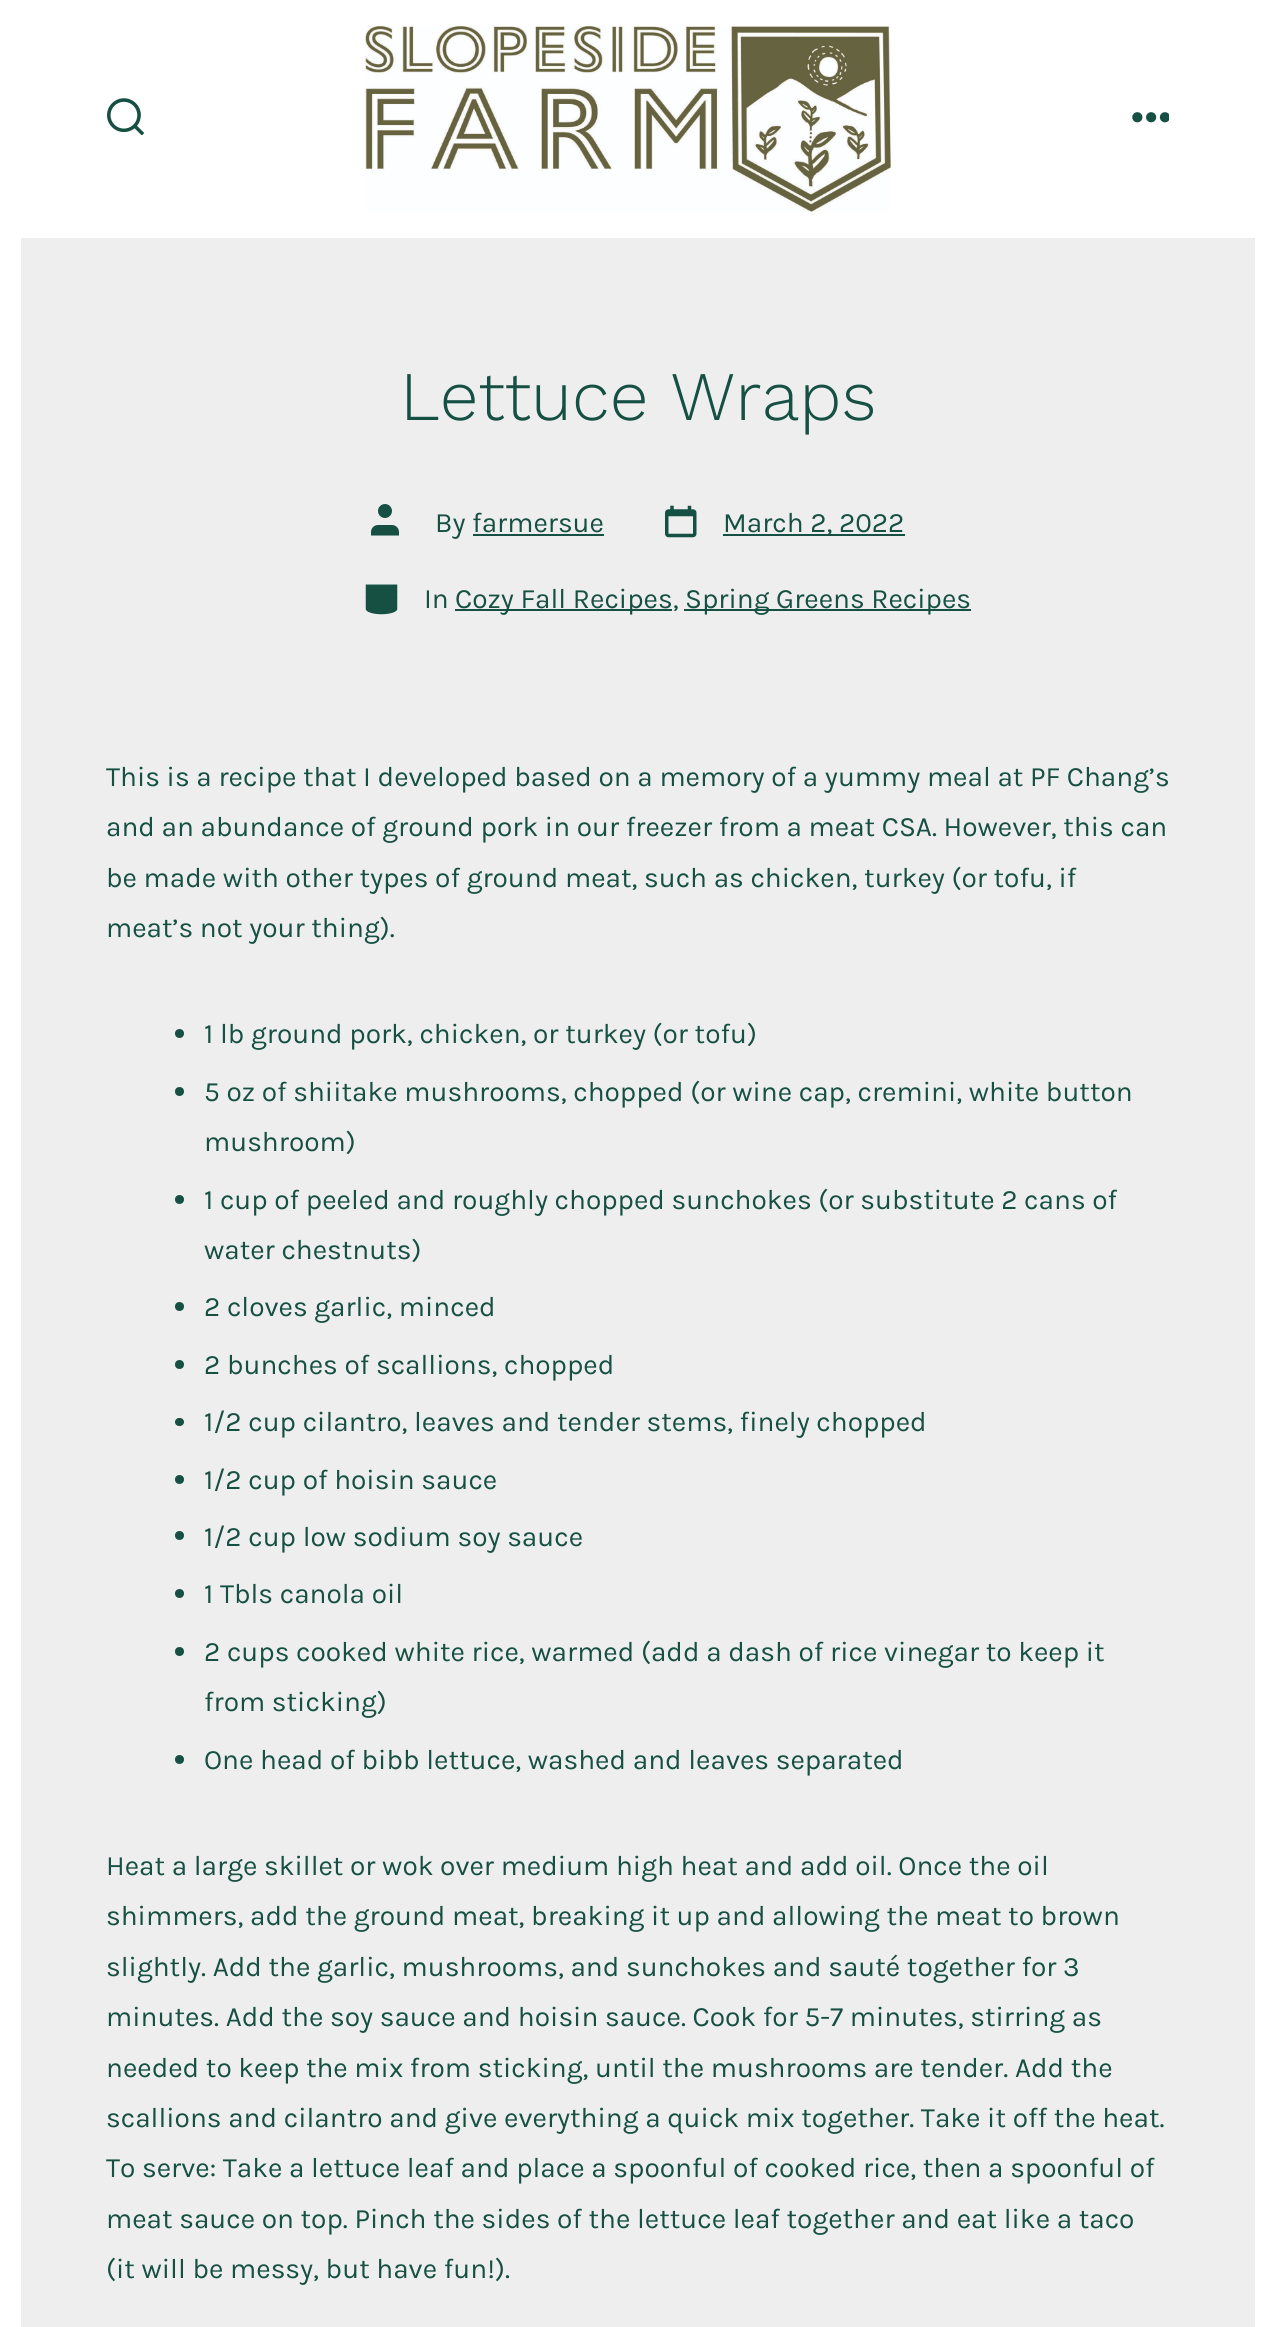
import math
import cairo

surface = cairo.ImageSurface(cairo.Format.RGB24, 1275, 2327)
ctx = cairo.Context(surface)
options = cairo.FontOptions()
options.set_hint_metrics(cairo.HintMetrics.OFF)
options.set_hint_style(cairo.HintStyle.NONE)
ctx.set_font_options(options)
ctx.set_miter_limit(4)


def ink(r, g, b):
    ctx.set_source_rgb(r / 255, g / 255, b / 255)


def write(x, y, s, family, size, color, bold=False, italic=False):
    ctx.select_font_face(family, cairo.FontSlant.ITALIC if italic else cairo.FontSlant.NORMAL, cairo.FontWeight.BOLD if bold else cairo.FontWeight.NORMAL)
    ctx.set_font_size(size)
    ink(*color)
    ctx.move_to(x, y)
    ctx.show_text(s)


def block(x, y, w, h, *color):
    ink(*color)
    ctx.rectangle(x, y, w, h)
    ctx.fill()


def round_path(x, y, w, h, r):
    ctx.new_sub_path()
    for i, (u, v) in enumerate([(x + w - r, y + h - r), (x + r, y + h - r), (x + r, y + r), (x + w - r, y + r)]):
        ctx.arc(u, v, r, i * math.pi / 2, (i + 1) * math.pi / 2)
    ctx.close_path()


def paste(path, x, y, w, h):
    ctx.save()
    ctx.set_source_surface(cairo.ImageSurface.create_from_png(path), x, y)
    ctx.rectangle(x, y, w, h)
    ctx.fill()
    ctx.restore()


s1 = dict(family="Work Sans Light", size=69.5, color=(22, 80, 67))
s2 = dict(family="Karla", size=28, color=(22, 80, 67))

ink(238, 238, 238)
ctx.paint()
block(1255, 0, 20, 2327, 255, 255, 255)
block(0, 0, 21, 2327, 255, 255, 255)
block(21, 0, 1234, 238, 255, 255, 255)
paste("pic1.png", 107, 98, 37, 37)
paste("pic2.png", 365, 26, 526, 186)
paste("pic3.png", 1132, 112, 37, 11)
write(400, 420, "Lettuce Wraps", **s1)
paste("pic4.png", 371, 504, 28, 32)
write(435, 532, "By farmersue", **s2)
block(473, 534, 131, 2, 22, 80, 67)
paste("pic5.png", 665, 505, 32, 33)
block(723, 534, 182, 2, 22, 80, 67)
write(723, 532, "March 2, 2022", **s2)
paste("pic6.png", 365, 584, 33, 31)
write(424, 608, "In", **s2)
block(455, 609, 217, 2, 22, 80, 67)
write(455, 608, "Cozy Fall Recipes,", **s2)
block(684, 609, 287, 2, 22, 80, 67)
write(685, 608, "Spring Greens Recipes", **s2)
write(106, 786, "This is a recipe that I developed based on a memory of a yummy meal at PF Chang’s", **s2)
write(106, 836, "and an abundance of ground pork in our freezer from a meat CSA. However, this can", **s2)
write(106, 887, "be made with other types of ground meat, such as chicken, turkey (or tofu, if", **s2)
write(106, 937, "meat’s not your thing).", **s2)
ctx.new_path()
ctx.arc(179.5, 1033.5, 4.5, 0, 2 * math.pi)
ctx.fill()
write(204, 1043, "1 lb ground pork, chicken, or turkey (or tofu)", **s2)
ctx.new_path()
ctx.arc(179.5, 1091.5, 4.5, 0, 2 * math.pi)
ctx.fill()
write(204, 1101, "5 oz of shiitake mushrooms, chopped (or wine cap, cremini, white button", **s2)
write(204, 1151, "mushroom)", **s2)
ctx.new_path()
ctx.arc(179.5, 1199.5, 4.5, 0, 2 * math.pi)
ctx.fill()
write(204, 1209, "1 cup of peeled and roughly chopped sunchokes (or substitute 2 cans of", **s2)
write(204, 1259, "water chestnuts)", **s2)
ctx.new_path()
ctx.arc(179.5, 1306.5, 4.5, 0, 2 * math.pi)
ctx.fill()
write(204, 1316, "2 cloves garlic, minced", **s2)
ctx.new_path()
ctx.arc(179.5, 1364.5, 4.5, 0, 2 * math.pi)
ctx.fill()
write(204, 1374, "2 bunches of scallions, chopped", **s2)
round_path(175, 1418, 9, 8, 4)
ctx.fill()
write(204, 1431, "1/2 cup cilantro, leaves and tender stems, finely chopped", **s2)
ctx.new_path()
ctx.arc(179.5, 1479.5, 4.5, 0, 2 * math.pi)
ctx.fill()
write(204, 1489, "1/2 cup of hoisin sauce", **s2)
ctx.new_path()
ctx.arc(179.5, 1535.5, 4.5, 0, 2 * math.pi)
ctx.fill()
write(204, 1546, "1/2 cup low sodium soy sauce", **s2)
ctx.new_path()
ctx.arc(179.5, 1593.5, 4.5, 0, 2 * math.pi)
ctx.fill()
write(204, 1603, "1 Tbls canola oil", **s2)
ctx.new_path()
ctx.arc(179.5, 1651.5, 4.5, 0, 2 * math.pi)
ctx.fill()
write(204, 1661, "2 cups cooked white rice, warmed (add a dash of rice vinegar to keep it", **s2)
write(204, 1711, "from sticking)", **s2)
ctx.new_path()
ctx.arc(179.5, 1759.5, 4.5, 0, 2 * math.pi)
ctx.fill()
write(204, 1769, "One head of bibb lettuce, washed and leaves separated", **s2)
write(106, 1875, "Heat a large skillet or wok over medium high heat and add oil. Once the oil", **s2)
write(106, 1925, "shimmers, add the ground meat, breaking it up and allowing the meat to brown", **s2)
write(106, 1976, "slightly. Add the garlic, mushrooms, and sunchokes and sauté together for 3", **s2)
write(106, 2026, "minutes. Add the soy sauce and hoisin sauce. Cook for 5-7 minutes, stirring as", **s2)
write(106, 2077, "needed to keep the mix from sticking, until the mushrooms are tender. Add the", **s2)
write(106, 2127, "scallions and cilantro and give everything a quick mix together. Take it off the heat.", **s2)
write(106, 2177, "To serve: Take a lettuce leaf and place a spoonful of cooked rice, then a spoonful of", **s2)
write(106, 2228, "meat sauce on top. Pinch the sides of the lettuce leaf together and eat like a taco", **s2)
write(106, 2278, "(it will be messy, but have fun!).", **s2)
surface.write_to_png("screenshot.png")
